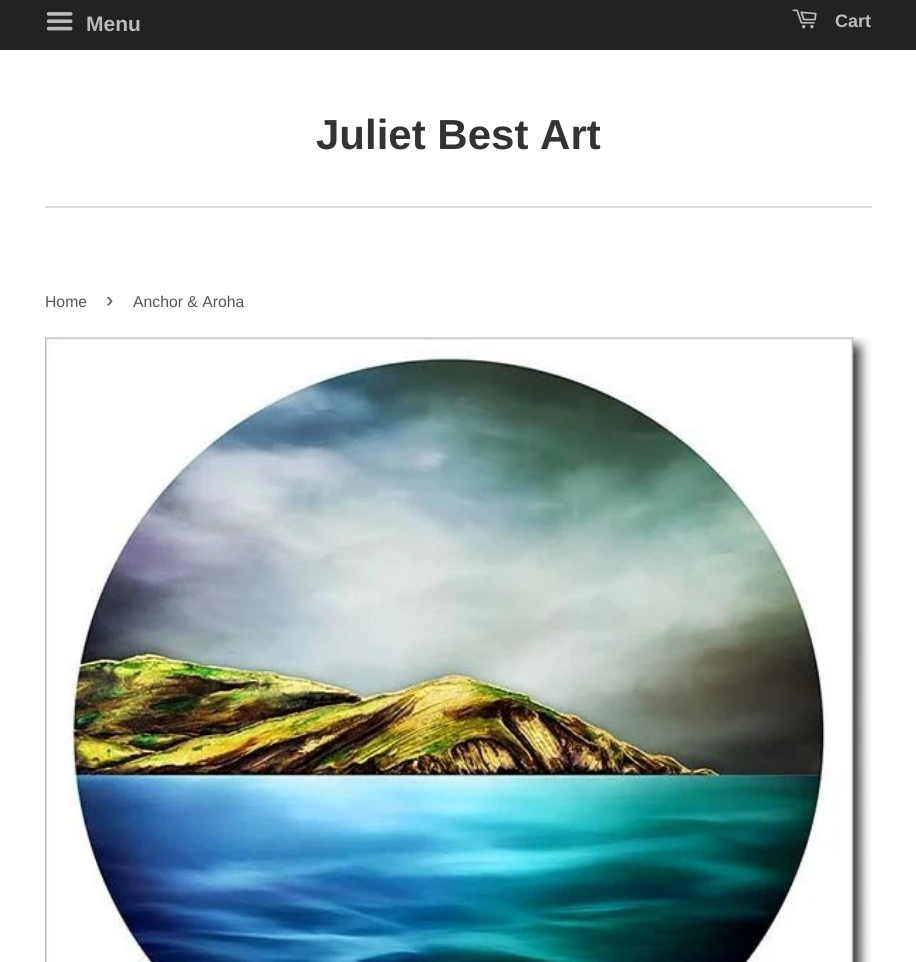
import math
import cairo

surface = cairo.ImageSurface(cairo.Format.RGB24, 916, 962)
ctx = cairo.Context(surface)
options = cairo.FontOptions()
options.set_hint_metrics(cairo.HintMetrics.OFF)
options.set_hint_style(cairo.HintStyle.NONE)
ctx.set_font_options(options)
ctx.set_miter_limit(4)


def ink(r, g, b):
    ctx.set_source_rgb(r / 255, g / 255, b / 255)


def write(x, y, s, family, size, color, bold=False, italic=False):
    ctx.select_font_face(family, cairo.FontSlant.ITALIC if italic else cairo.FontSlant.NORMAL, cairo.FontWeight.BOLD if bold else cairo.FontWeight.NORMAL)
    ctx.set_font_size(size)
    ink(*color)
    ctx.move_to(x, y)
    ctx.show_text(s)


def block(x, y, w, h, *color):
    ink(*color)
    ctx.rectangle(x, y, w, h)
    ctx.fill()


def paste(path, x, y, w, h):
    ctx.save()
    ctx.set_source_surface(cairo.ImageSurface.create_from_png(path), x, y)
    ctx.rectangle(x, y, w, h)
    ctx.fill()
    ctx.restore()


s1 = dict(family="Liberation Sans", size=21, color=(187, 187, 187), bold=True)
s2 = dict(family="Liberation Sans", size=18, color=(187, 187, 187), bold=True)
s3 = dict(family="Liberation Sans", size=42, color=(51, 51, 51), bold=True)
s4 = dict(family="Liberation Sans", size=15.75, color=(85, 85, 85))
s5 = dict(family="Liberation Sans", size=22, color=(85, 85, 85))

ink(255, 255, 255)
ctx.paint()
block(0, 0, 916, 50, 34, 34, 34)
paste("pic1.png", 46, 12, 27, 19)
write(86, 31, "Menu", **s1)
paste("pic2.png", 792, 9, 25, 20)
write(835, 27, "Cart", **s2)
block(45, 206, 827, 2, 221, 221, 221)
write(316, 149, "Juliet Best Art", **s3)
write(45, 307, "Home", **s4)
write(106, 307, "›", **s5)
write(133, 307, "Anchor & Aroha", **s4)
paste("pic3.png", 45, 337, 827, 625)
surface.write_to_png("screenshot.png")
